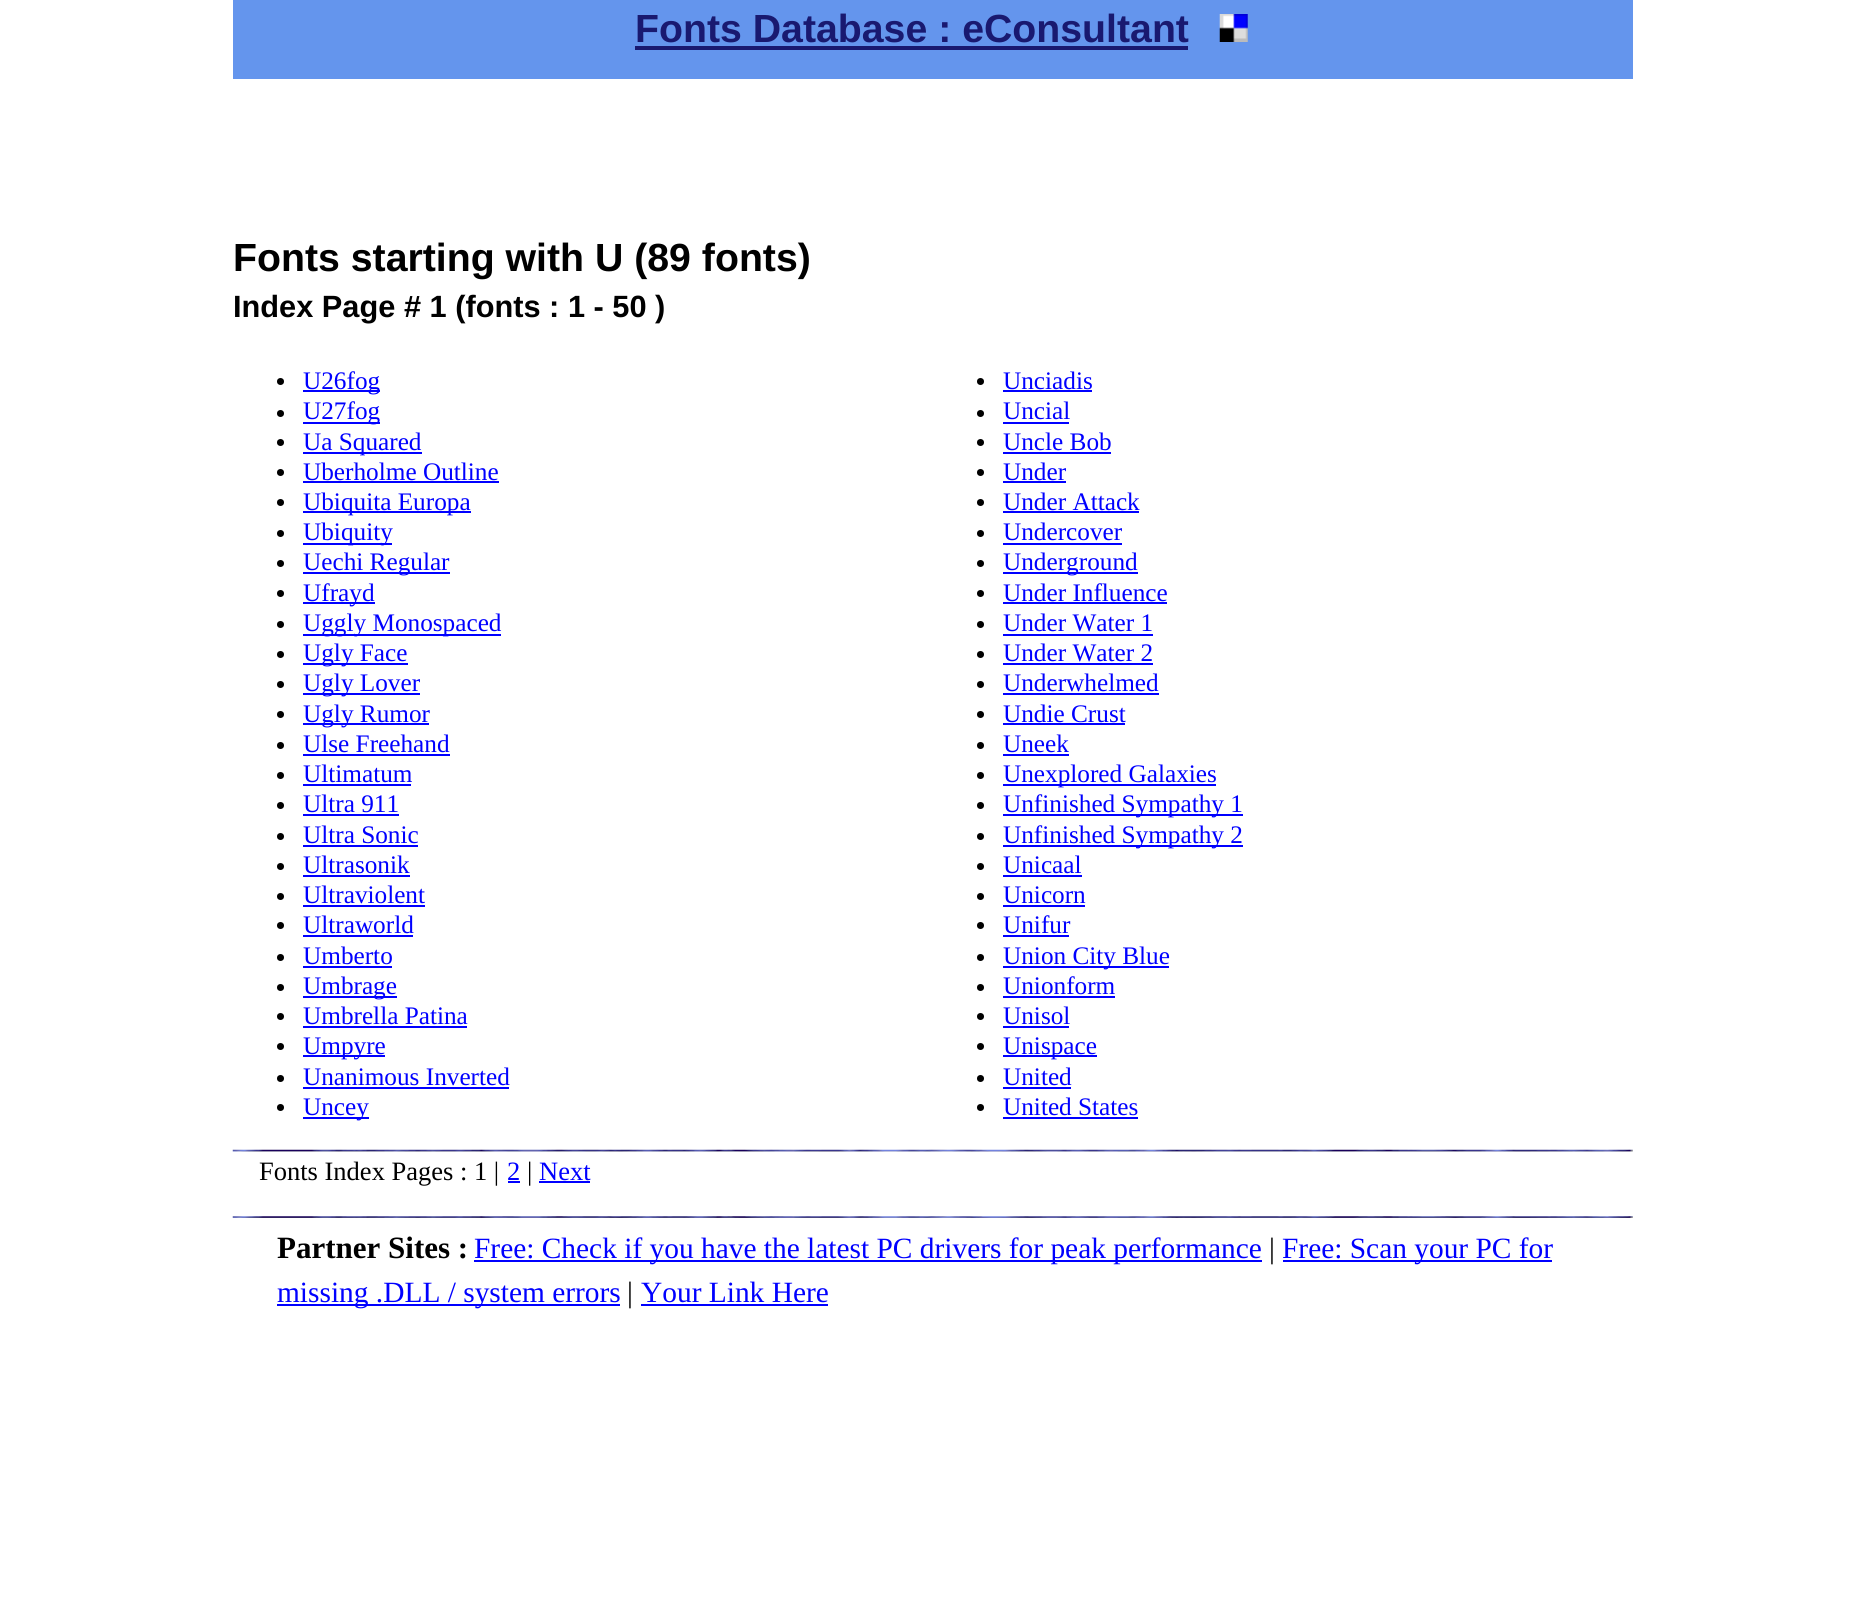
import math
import cairo

surface = cairo.ImageSurface(cairo.Format.RGB24, 1865, 1605)
ctx = cairo.Context(surface)
options = cairo.FontOptions()
options.set_hint_metrics(cairo.HintMetrics.OFF)
options.set_hint_style(cairo.HintStyle.NONE)
ctx.set_font_options(options)
ctx.set_miter_limit(4)


def ink(r, g, b):
    ctx.set_source_rgb(r / 255, g / 255, b / 255)


def write(x, y, s, family, size, color, bold=False, italic=False):
    ctx.select_font_face(family, cairo.FontSlant.ITALIC if italic else cairo.FontSlant.NORMAL, cairo.FontWeight.BOLD if bold else cairo.FontWeight.NORMAL)
    ctx.set_font_size(size)
    ink(*color)
    ctx.move_to(x, y)
    ctx.show_text(s)


def block(x, y, w, h, *color):
    ink(*color)
    ctx.rectangle(x, y, w, h)
    ctx.fill()


def paste(path, x, y, w, h):
    ctx.save()
    ctx.set_source_surface(cairo.ImageSurface.create_from_png(path), x, y)
    ctx.rectangle(x, y, w, h)
    ctx.fill()
    ctx.restore()


s1 = dict(family="Liberation Sans", size=39.25, color=(25, 25, 112), bold=True)
s2 = dict(family="Liberation Sans", size=39.25, color=(0, 0, 0), bold=True)
s3 = dict(family="Liberation Sans", size=30.75, color=(0, 0, 0), bold=True)
s4 = dict(family="Liberation Serif", size=25.25, color=(0, 0, 255))
s5 = dict(family="Liberation Serif", size=26.5, color=(0, 0, 0))
s6 = dict(family="Liberation Serif", size=26.5, color=(0, 0, 255))
s7 = dict(family="Liberation Serif", size=31, color=(0, 0, 0), bold=True)
s8 = dict(family="Liberation Serif", size=29.4, color=(0, 0, 255))
s9 = dict(family="Liberation Serif", size=29.4, color=(0, 0, 0))

ink(255, 255, 255)
ctx.paint()
block(233, 0, 1400, 79, 100, 149, 237)
write(635, 42, "Fonts Database : eConsultant", **s1)
block(635, 46, 553, 4, 25, 25, 112)
paste("pic1.png", 1219, 14, 29, 28)
write(233, 271, "Fonts starting with U (89 fonts)", **s2)
write(233, 317, "Index Page # 1 (fonts : 1 - 50 )", **s3)
ctx.new_path()
ctx.arc(280.5, 381.5, 3.5, 0, 2 * math.pi)
ctx.fill()
block(303, 390, 77, 2, 0, 0, 255)
write(303, 389, "U26fog", **s4)
ink(0, 0, 0)
ctx.new_path()
ctx.arc(280.5, 413.5, 3.5, 0, 2 * math.pi)
ctx.fill()
block(303, 422, 77, 2, 0, 0, 255)
write(303, 419, "U27fog", **s4)
ink(0, 0, 0)
ctx.new_path()
ctx.arc(280.5, 442.5, 3.5, 0, 2 * math.pi)
ctx.fill()
block(303, 452, 119, 2, 0, 0, 255)
write(303, 450, "Ua Squared", **s4)
ink(0, 0, 0)
ctx.new_path()
ctx.arc(280.5, 472.5, 3.5, 0, 2 * math.pi)
ctx.fill()
write(303, 480, "Uberholme Outline", **s4)
block(303, 481, 196, 2, 0, 0, 255)
ink(0, 0, 0)
ctx.new_path()
ctx.arc(280.5, 502.5, 3.5, 0, 2 * math.pi)
ctx.fill()
block(303, 511, 168, 2, 0, 0, 255)
write(303, 510, "Ubiquita Europa", **s4)
ink(0, 0, 0)
ctx.new_path()
ctx.arc(280.5, 533.5, 3.5, 0, 2 * math.pi)
ctx.fill()
block(303, 543, 89, 2, 0, 0, 255)
write(303, 540, "Ubiquity", **s4)
ink(0, 0, 0)
ctx.new_path()
ctx.arc(280.5, 563.5, 3.5, 0, 2 * math.pi)
ctx.fill()
block(303, 572, 147, 2, 0, 0, 255)
write(303, 570, "Uechi Regular", **s4)
ink(0, 0, 0)
ctx.new_path()
ctx.arc(280.5, 593.5, 3.5, 0, 2 * math.pi)
ctx.fill()
block(303, 602, 72, 2, 0, 0, 255)
write(303, 601, "Ufrayd", **s4)
ink(0, 0, 0)
ctx.new_path()
ctx.arc(280.5, 624.5, 3.5, 0, 2 * math.pi)
ctx.fill()
block(303, 634, 198, 2, 0, 0, 255)
write(303, 631, "Uggly Monospaced", **s4)
ink(0, 0, 0)
ctx.new_path()
ctx.arc(280.5, 654.5, 3.5, 0, 2 * math.pi)
ctx.fill()
block(303, 663, 105, 2, 0, 0, 255)
write(303, 661, "Ugly Face", **s4)
ink(0, 0, 0)
ctx.new_path()
ctx.arc(280.5, 684.5, 3.5, 0, 2 * math.pi)
ctx.fill()
block(303, 693, 117, 2, 0, 0, 255)
write(303, 691, "Ugly Lover", **s4)
ink(0, 0, 0)
ctx.new_path()
ctx.arc(280.5, 714.5, 3.5, 0, 2 * math.pi)
ctx.fill()
block(303, 723, 126, 2, 0, 0, 255)
write(303, 722, "Ugly Rumor", **s4)
ink(0, 0, 0)
ctx.new_path()
ctx.arc(280.5, 745.5, 3.5, 0, 2 * math.pi)
ctx.fill()
write(303, 752, "Ulse Freehand", **s4)
block(303, 754, 147, 2, 0, 0, 255)
ink(0, 0, 0)
ctx.new_path()
ctx.arc(280.5, 775.5, 3.5, 0, 2 * math.pi)
ctx.fill()
write(303, 782, "Ultimatum", **s4)
block(303, 784, 108, 2, 0, 0, 255)
ink(0, 0, 0)
ctx.new_path()
ctx.arc(280.5, 805.5, 3.5, 0, 2 * math.pi)
ctx.fill()
write(303, 812, "Ultra 911", **s4)
block(303, 814, 96, 2, 0, 0, 255)
ink(0, 0, 0)
ctx.new_path()
ctx.arc(280.5, 836.5, 3.5, 0, 2 * math.pi)
ctx.fill()
write(303, 843, "Ultra Sonic", **s4)
block(303, 845, 115, 2, 0, 0, 255)
ink(0, 0, 0)
ctx.new_path()
ctx.arc(280.5, 866.5, 3.5, 0, 2 * math.pi)
ctx.fill()
write(303, 873, "Ultrasonik", **s4)
block(303, 875, 107, 2, 0, 0, 255)
ink(0, 0, 0)
ctx.new_path()
ctx.arc(280.5, 896.5, 3.5, 0, 2 * math.pi)
ctx.fill()
write(303, 903, "Ultraviolent", **s4)
block(303, 905, 122, 2, 0, 0, 255)
ink(0, 0, 0)
ctx.new_path()
ctx.arc(280.5, 925.5, 3.5, 0, 2 * math.pi)
ctx.fill()
write(303, 933, "Ultraworld", **s4)
block(303, 935, 110, 2, 0, 0, 255)
ink(0, 0, 0)
ctx.new_path()
ctx.arc(280.5, 957.5, 3.5, 0, 2 * math.pi)
ctx.fill()
write(303, 964, "Umberto", **s4)
block(303, 966, 89, 2, 0, 0, 255)
ink(0, 0, 0)
ctx.new_path()
ctx.arc(280.5, 987.5, 3.5, 0, 2 * math.pi)
ctx.fill()
block(303, 996, 94, 2, 0, 0, 255)
write(303, 994, "Umbrage", **s4)
ink(0, 0, 0)
ctx.new_path()
ctx.arc(280.5, 1016.5, 3.5, 0, 2 * math.pi)
ctx.fill()
write(303, 1024, "Umbrella Patina", **s4)
block(303, 1026, 164, 2, 0, 0, 255)
ink(0, 0, 0)
ctx.new_path()
ctx.arc(280.5, 1046.5, 3.5, 0, 2 * math.pi)
ctx.fill()
block(303, 1055, 82, 2, 0, 0, 255)
write(303, 1054, "Umpyre", **s4)
ink(0, 0, 0)
ctx.new_path()
ctx.arc(280.5, 1078.5, 3.5, 0, 2 * math.pi)
ctx.fill()
write(303, 1085, "Unanimous Inverted", **s4)
block(303, 1087, 206, 2, 0, 0, 255)
ink(0, 0, 0)
ctx.new_path()
ctx.arc(280.5, 1107.5, 3.5, 0, 2 * math.pi)
ctx.fill()
block(303, 1117, 66, 2, 0, 0, 255)
write(303, 1115, "Uncey", **s4)
ink(0, 0, 0)
ctx.new_path()
ctx.arc(980.5, 381.5, 3.5, 0, 2 * math.pi)
ctx.fill()
write(1003, 389, "Unciadis", **s4)
block(1003, 390, 89, 2, 0, 0, 255)
ink(0, 0, 0)
ctx.new_path()
ctx.arc(980.5, 413.5, 3.5, 0, 2 * math.pi)
ctx.fill()
write(1003, 419, "Uncial", **s4)
block(1003, 422, 66, 2, 0, 0, 255)
ink(0, 0, 0)
ctx.new_path()
ctx.arc(980.5, 442.5, 3.5, 0, 2 * math.pi)
ctx.fill()
write(1003, 450, "Uncle Bob", **s4)
block(1003, 452, 108, 2, 0, 0, 255)
ink(0, 0, 0)
ctx.new_path()
ctx.arc(980.5, 472.5, 3.5, 0, 2 * math.pi)
ctx.fill()
write(1003, 480, "Under", **s4)
block(1003, 481, 63, 2, 0, 0, 255)
ink(0, 0, 0)
ctx.new_path()
ctx.arc(980.5, 502.5, 3.5, 0, 2 * math.pi)
ctx.fill()
write(1003, 510, "Under Attack", **s4)
block(1003, 511, 136, 2, 0, 0, 255)
ink(0, 0, 0)
ctx.new_path()
ctx.arc(980.5, 533.5, 3.5, 0, 2 * math.pi)
ctx.fill()
write(1003, 540, "Undercover", **s4)
block(1003, 543, 119, 2, 0, 0, 255)
ink(0, 0, 0)
ctx.new_path()
ctx.arc(980.5, 563.5, 3.5, 0, 2 * math.pi)
ctx.fill()
block(1003, 572, 135, 2, 0, 0, 255)
write(1003, 570, "Underground", **s4)
ink(0, 0, 0)
ctx.new_path()
ctx.arc(980.5, 593.5, 3.5, 0, 2 * math.pi)
ctx.fill()
write(1003, 601, "Under Influence", **s4)
block(1003, 602, 164, 2, 0, 0, 255)
ink(0, 0, 0)
ctx.new_path()
ctx.arc(980.5, 624.5, 3.5, 0, 2 * math.pi)
ctx.fill()
write(1003, 631, "Under Water 1", **s4)
block(1003, 634, 150, 2, 0, 0, 255)
ink(0, 0, 0)
ctx.new_path()
ctx.arc(980.5, 654.5, 3.5, 0, 2 * math.pi)
ctx.fill()
write(1003, 661, "Under Water 2", **s4)
block(1003, 663, 150, 2, 0, 0, 255)
ink(0, 0, 0)
ctx.new_path()
ctx.arc(980.5, 684.5, 3.5, 0, 2 * math.pi)
ctx.fill()
write(1003, 691, "Underwhelmed", **s4)
block(1003, 693, 156, 2, 0, 0, 255)
ink(0, 0, 0)
ctx.new_path()
ctx.arc(980.5, 714.5, 3.5, 0, 2 * math.pi)
ctx.fill()
write(1003, 722, "Undie Crust", **s4)
block(1003, 723, 122, 2, 0, 0, 255)
ink(0, 0, 0)
ctx.new_path()
ctx.arc(980.5, 745.5, 3.5, 0, 2 * math.pi)
ctx.fill()
write(1003, 752, "Uneek", **s4)
block(1003, 754, 66, 2, 0, 0, 255)
ink(0, 0, 0)
ctx.new_path()
ctx.arc(980.5, 775.5, 3.5, 0, 2 * math.pi)
ctx.fill()
block(1003, 784, 213, 2, 0, 0, 255)
write(1003, 782, "Unexplored Galaxies", **s4)
ink(0, 0, 0)
ctx.new_path()
ctx.arc(980.5, 805.5, 3.5, 0, 2 * math.pi)
ctx.fill()
block(1003, 814, 240, 2, 0, 0, 255)
write(1003, 812, "Unfinished Sympathy 1", **s4)
ink(0, 0, 0)
ctx.new_path()
ctx.arc(980.5, 836.5, 3.5, 0, 2 * math.pi)
ctx.fill()
block(1003, 845, 240, 2, 0, 0, 255)
write(1003, 843, "Unfinished Sympathy 2", **s4)
ink(0, 0, 0)
ctx.new_path()
ctx.arc(980.5, 866.5, 3.5, 0, 2 * math.pi)
ctx.fill()
write(1003, 873, "Unicaal", **s4)
block(1003, 875, 79, 2, 0, 0, 255)
ink(0, 0, 0)
ctx.new_path()
ctx.arc(980.5, 896.5, 3.5, 0, 2 * math.pi)
ctx.fill()
write(1003, 903, "Unicorn", **s4)
block(1003, 905, 82, 2, 0, 0, 255)
ink(0, 0, 0)
ctx.new_path()
ctx.arc(980.5, 925.5, 3.5, 0, 2 * math.pi)
ctx.fill()
write(1003, 933, "Unifur", **s4)
block(1003, 935, 66, 2, 0, 0, 255)
ink(0, 0, 0)
ctx.new_path()
ctx.arc(980.5, 957.5, 3.5, 0, 2 * math.pi)
ctx.fill()
block(1003, 966, 166, 2, 0, 0, 255)
write(1003, 964, "Union City Blue", **s4)
ink(0, 0, 0)
ctx.new_path()
ctx.arc(980.5, 987.5, 3.5, 0, 2 * math.pi)
ctx.fill()
write(1003, 994, "Unionform", **s4)
block(1003, 996, 112, 2, 0, 0, 255)
ink(0, 0, 0)
ctx.new_path()
ctx.arc(980.5, 1016.5, 3.5, 0, 2 * math.pi)
ctx.fill()
write(1003, 1024, "Unisol", **s4)
block(1003, 1026, 66, 2, 0, 0, 255)
ink(0, 0, 0)
ctx.new_path()
ctx.arc(980.5, 1046.5, 3.5, 0, 2 * math.pi)
ctx.fill()
block(1003, 1055, 94, 2, 0, 0, 255)
write(1003, 1054, "Unispace", **s4)
ink(0, 0, 0)
ctx.new_path()
ctx.arc(980.5, 1078.5, 3.5, 0, 2 * math.pi)
ctx.fill()
write(1003, 1085, "United", **s4)
block(1003, 1087, 68, 2, 0, 0, 255)
ink(0, 0, 0)
ctx.new_path()
ctx.arc(980.5, 1107.5, 3.5, 0, 2 * math.pi)
ctx.fill()
write(1003, 1115, "United States", **s4)
block(1003, 1117, 135, 2, 0, 0, 255)
paste("pic2.png", 232, 1149, 1401, 3)
write(259, 1180, "Fonts Index Pages : 1 |", **s5)
write(507, 1180, "2", **s6)
block(508, 1181, 12, 2, 0, 0, 255)
write(527, 1180, "|", **s5)
write(539, 1180, "Next", **s6)
block(539, 1181, 51, 2, 0, 0, 255)
paste("pic3.png", 232, 1216, 1401, 2)
write(277, 1258, "Partner Sites :", **s7)
block(474, 1260, 788, 2, 0, 0, 255)
write(474, 1258, "Free: Check if you have the latest PC drivers for peak performance", **s8)
write(1269, 1258, "|", **s9)
block(1283, 1260, 269, 2, 0, 0, 255)
write(1282, 1258, "Free: Scan your PC for", **s8)
block(277, 1304, 343, 2, 0, 0, 255)
write(277, 1302, "missing .DLL / system errors", **s8)
write(627, 1302, "|", **s9)
write(641, 1302, "Your Link Here", **s8)
block(641, 1304, 187, 2, 0, 0, 255)
surface.write_to_png("screenshot.png")
